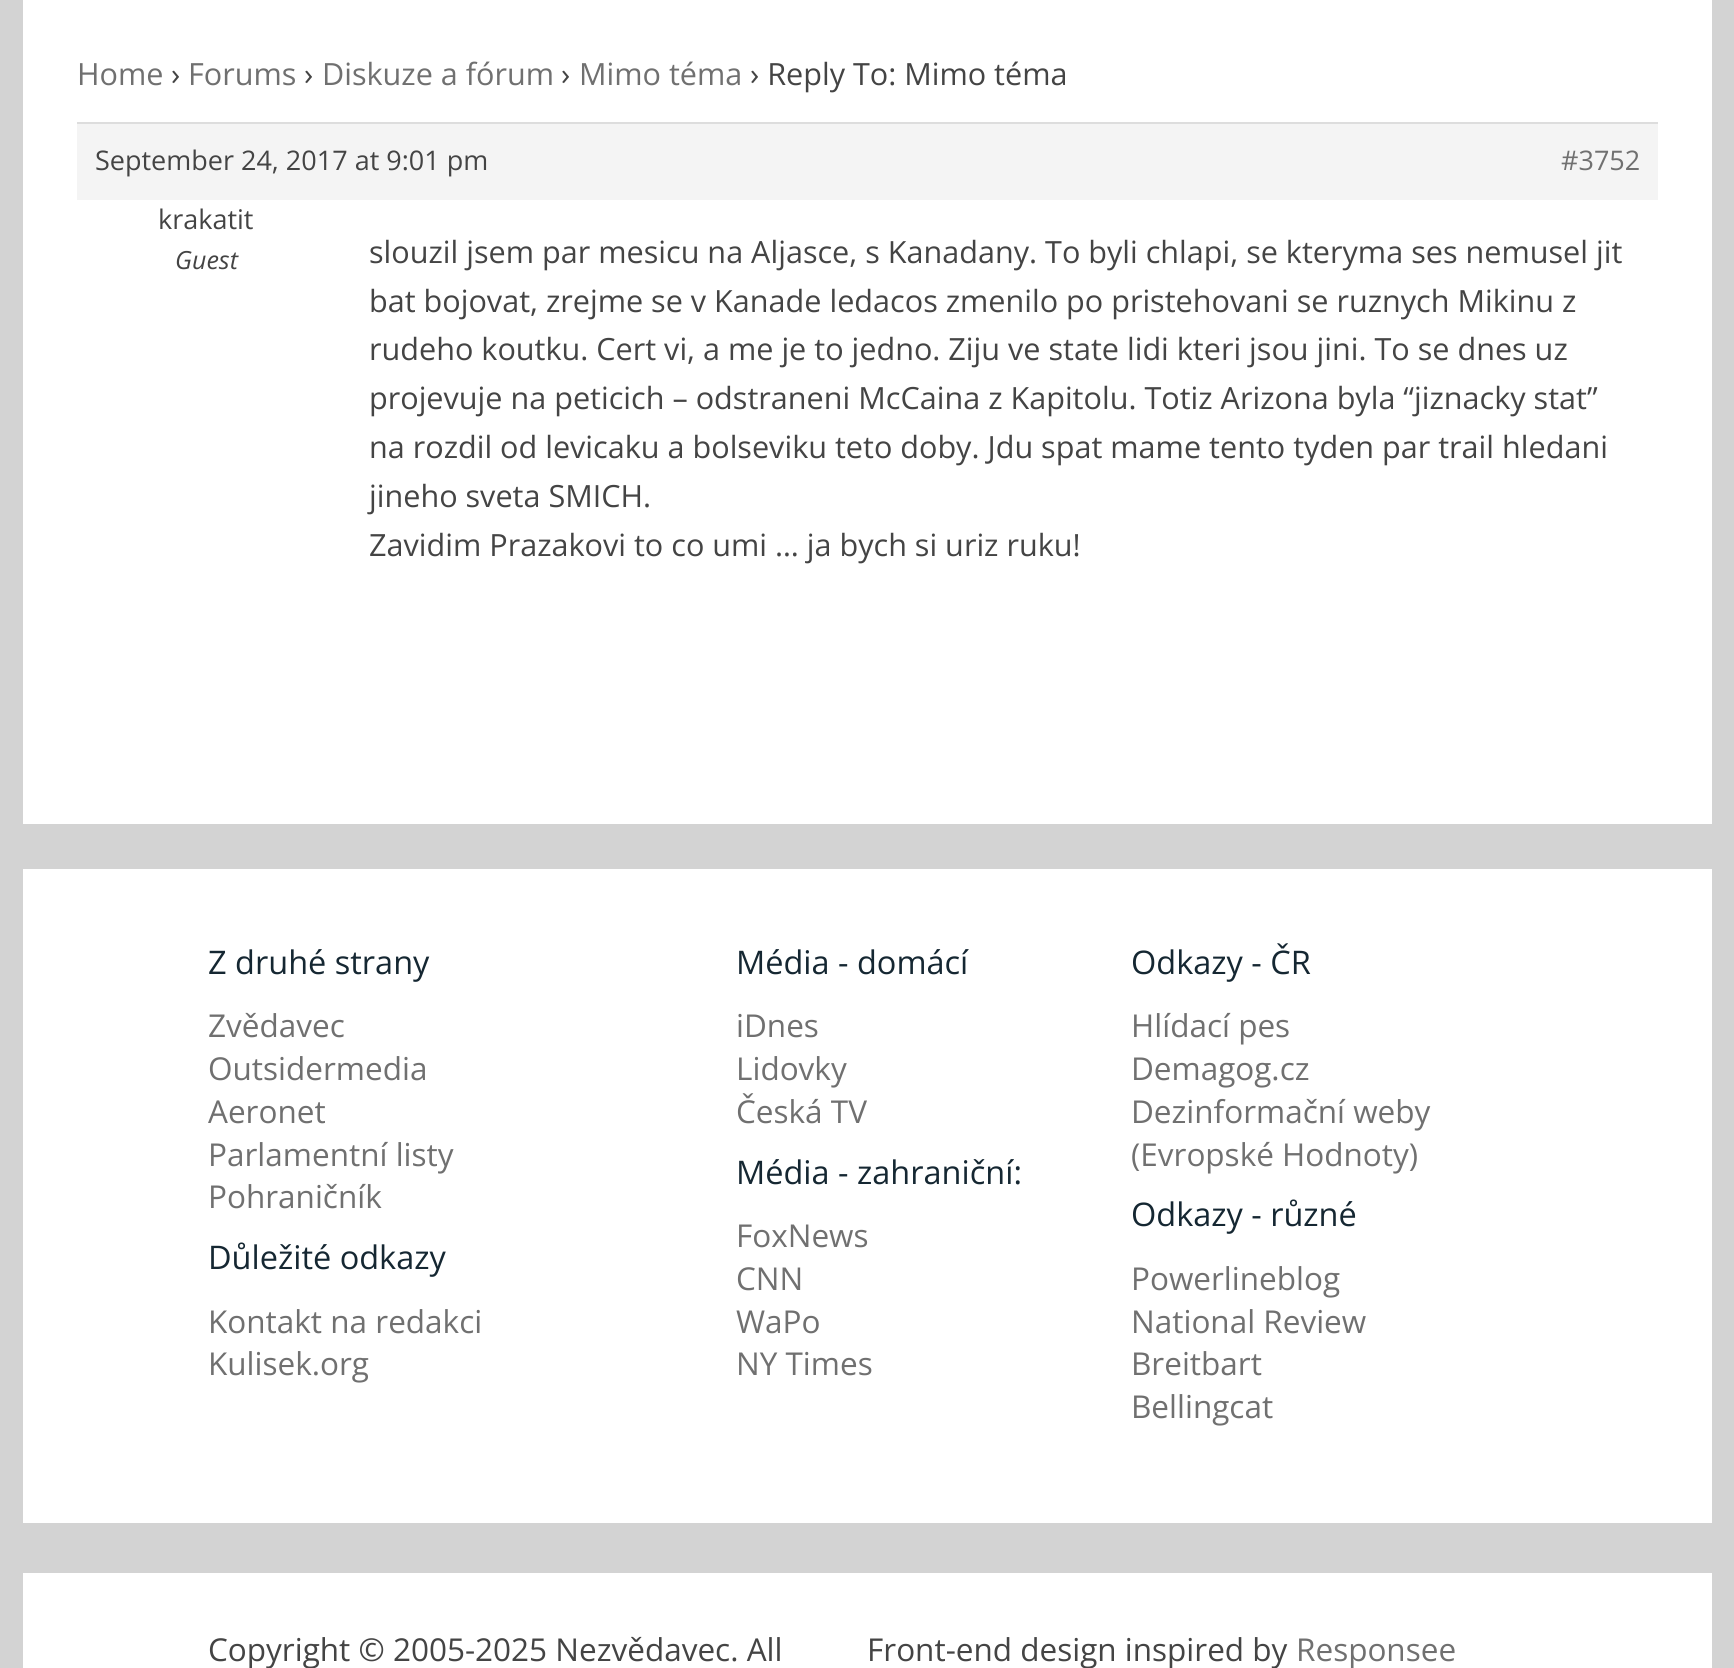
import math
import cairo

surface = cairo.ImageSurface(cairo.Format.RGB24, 1734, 1668)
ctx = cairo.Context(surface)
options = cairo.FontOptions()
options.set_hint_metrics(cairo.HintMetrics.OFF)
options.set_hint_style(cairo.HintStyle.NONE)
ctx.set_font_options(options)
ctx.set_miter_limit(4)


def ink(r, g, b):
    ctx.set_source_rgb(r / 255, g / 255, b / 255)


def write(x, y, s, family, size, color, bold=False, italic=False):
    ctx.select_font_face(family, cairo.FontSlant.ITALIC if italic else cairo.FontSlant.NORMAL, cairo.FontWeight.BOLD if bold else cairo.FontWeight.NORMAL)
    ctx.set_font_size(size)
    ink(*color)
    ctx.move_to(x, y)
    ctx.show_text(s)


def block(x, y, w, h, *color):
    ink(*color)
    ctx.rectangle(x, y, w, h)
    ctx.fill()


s1 = dict(family="Open Sans", size=30.6, color=(112, 112, 112))
s2 = dict(family="Open Sans", size=30.6, color=(68, 68, 68))
s3 = dict(family="Open Sans", size=27, color=(68, 68, 68))
s4 = dict(family="Open Sans", size=27, color=(112, 112, 112))
s5 = dict(family="Open Sans", size=25, color=(68, 68, 68), italic=True)
s6 = dict(family="Open Sans", size=32.5, color=(21, 39, 50))
s7 = dict(family="Open Sans", size=31.5, color=(112, 112, 112))
s8 = dict(family="Open Sans", size=31.5, color=(68, 68, 68))

ink(211, 211, 211)
ctx.paint()
block(23, 0, 1689, 824, 255, 255, 255)
write(77, 85, "Home", **s1)
write(171, 85, "›", **s2)
write(188, 85, "Forums", **s1)
write(304, 85, "›", **s2)
write(322, 85, "Diskuze a fórum", **s1)
write(561, 85, "›", **s2)
write(579, 85, "Mimo téma", **s1)
write(750, 85, "› Reply To: Mimo téma", **s2)
block(77, 124, 1581, 76, 244, 244, 244)
block(77, 122, 1581, 2, 221, 221, 221)
write(95, 170, "September 24, 2017 at 9:01 pm", **s3)
write(1561, 170, "#3752", **s4)
write(158, 229, "krakatit", **s3)
write(175, 269, "Guest", **s5)
write(369, 263, "slouzil jsem par mesicu na Aljasce, s Kanadany. To byli chlapi, se kteryma ses nemusel jit", **s2)
write(369, 312, "bat bojovat, zrejme se v Kanade ledacos zmenilo po pristehovani se ruznych Mikinu z", **s2)
write(369, 360, "rudeho koutku. Cert vi, a me je to jedno. Ziju ve state lidi kteri jsou jini. To se dnes uz", **s2)
write(369, 409, "projevuje na peticich – odstraneni McCaina z Kapitolu. Totiz Arizona byla “jiznacky stat”", **s2)
write(369, 458, "na rozdil od levicaku a bolseviku teto doby. Jdu spat mame tento tyden par trail hledani", **s2)
write(369, 507, "jineho sveta SMICH.", **s2)
write(369, 556, "Zavidim Prazakovi to co umi … ja bych si uriz ruku!", **s2)
block(23, 869, 1689, 654, 255, 255, 255)
write(208, 974, "Z druhé strany", **s6)
write(208, 1037, "Zvědavec", **s7)
write(208, 1080, "Outsidermedia", **s7)
write(208, 1123, "Aeronet", **s7)
write(208, 1166, "Parlamentní listy", **s7)
write(208, 1208, "Pohraničník", **s7)
write(208, 1269, "Důležité odkazy", **s6)
write(208, 1333, "Kontakt na redakci", **s7)
write(208, 1375, "Kulisek.org", **s7)
write(736, 974, "Média - domácí", **s6)
write(736, 1037, "iDnes", **s7)
write(736, 1080, "Lidovky", **s7)
write(736, 1123, "Česká TV", **s7)
write(736, 1184, "Média - zahraniční:", **s6)
write(736, 1247, "FoxNews", **s7)
write(736, 1290, "CNN", **s7)
write(736, 1333, "WaPo", **s7)
write(736, 1375, "NY Times", **s7)
write(1131, 974, "Odkazy - ČR", **s6)
write(1131, 1037, "Hlídací pes", **s7)
write(1131, 1080, "Demagog.cz", **s7)
write(1131, 1123, "Dezinformační weby", **s7)
write(1131, 1166, "(Evropské Hodnoty)", **s7)
write(1131, 1226, "Odkazy - různé", **s6)
write(1131, 1290, "Powerlineblog", **s7)
write(1131, 1333, "National Review", **s7)
write(1131, 1375, "Breitbart", **s7)
write(1131, 1418, "Bellingcat", **s7)
block(23, 1573, 1689, 95, 255, 255, 255)
write(208, 1661, "Copyright © 2005-2025 Nezvědavec. All", **s8)
write(867, 1661, "Front-end design inspired by", **s8)
write(1296, 1661, "Responsee", **s7)
surface.write_to_png("screenshot.png")
